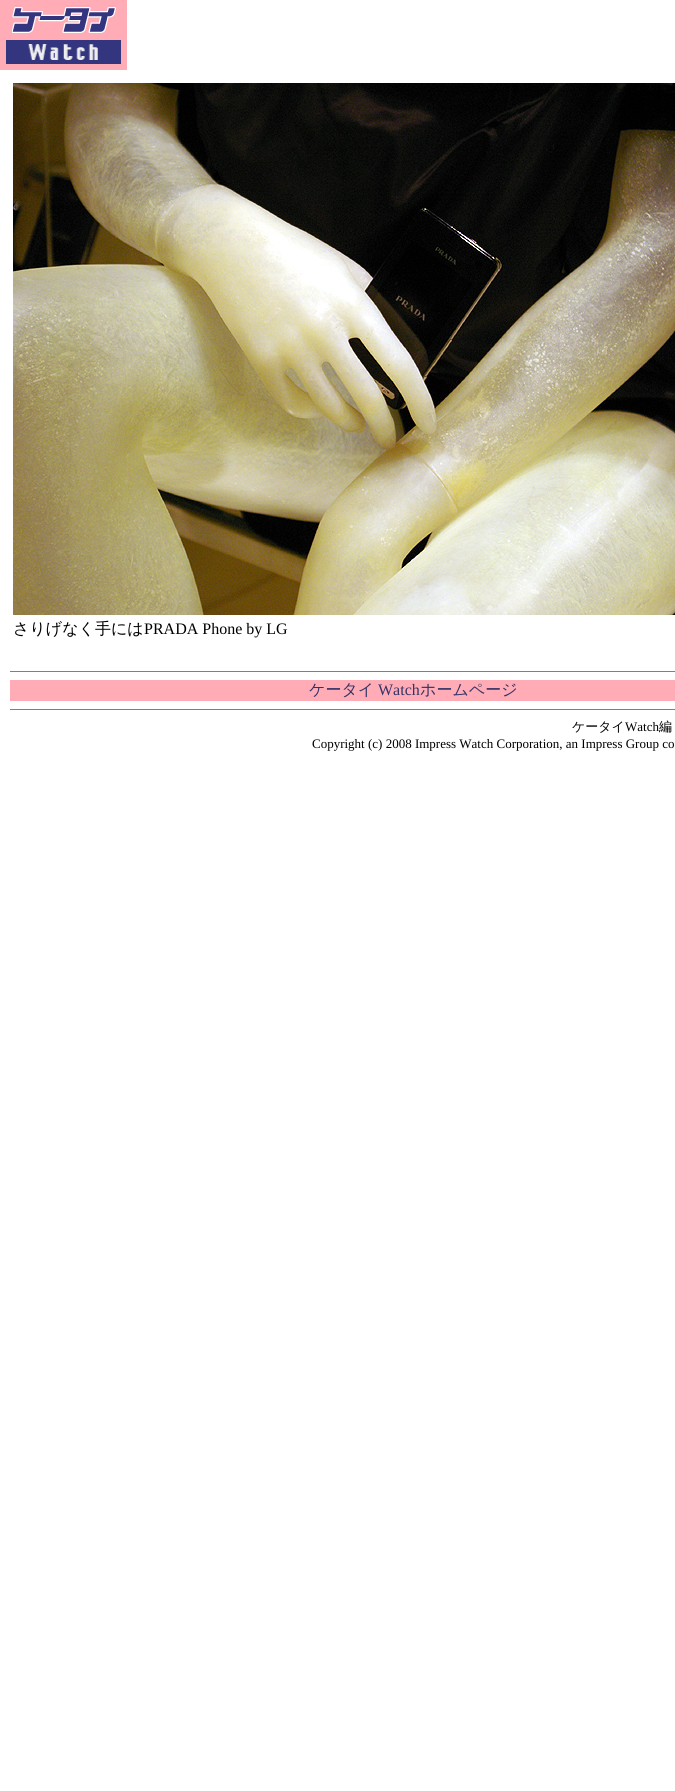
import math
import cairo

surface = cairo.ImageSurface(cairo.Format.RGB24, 675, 1791)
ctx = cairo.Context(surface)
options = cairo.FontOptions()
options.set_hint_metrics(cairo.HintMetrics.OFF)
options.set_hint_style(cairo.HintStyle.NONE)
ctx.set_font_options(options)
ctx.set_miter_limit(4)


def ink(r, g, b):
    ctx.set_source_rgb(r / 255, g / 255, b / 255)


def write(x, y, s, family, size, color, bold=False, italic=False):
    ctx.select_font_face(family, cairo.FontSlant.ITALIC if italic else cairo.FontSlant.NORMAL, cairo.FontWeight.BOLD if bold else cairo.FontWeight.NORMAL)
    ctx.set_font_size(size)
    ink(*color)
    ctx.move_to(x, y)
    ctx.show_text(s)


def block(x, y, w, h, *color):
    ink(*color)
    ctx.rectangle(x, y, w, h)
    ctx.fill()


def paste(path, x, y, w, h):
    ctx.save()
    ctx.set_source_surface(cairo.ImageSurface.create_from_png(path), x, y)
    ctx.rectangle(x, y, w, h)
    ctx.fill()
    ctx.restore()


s1 = dict(family="WenQuanYi Zen Hei Medium", size=16, color=(0, 0, 0))
s2 = dict(family="Liberation Serif", size=16, color=(0, 0, 0))
s3 = dict(family="WenQuanYi Zen Hei Medium", size=16, color=(51, 51, 102))
s4 = dict(family="Liberation Serif", size=16, color=(51, 51, 102))
s5 = dict(family="WenQuanYi Zen Hei Medium", size=13, color=(0, 0, 0))
s6 = dict(family="Liberation Serif", size=13, color=(0, 0, 0))

ink(255, 255, 255)
ctx.paint()
block(0, 0, 127, 70, 255, 172, 183)
paste("pic1.png", 0, 5, 121, 65)
paste("pic2.png", 13, 83, 662, 532)
write(13, 634, "さりげなく手には", **s1)
write(144, 634, "PRADA Phone by LG", **s2)
block(10, 671, 665, 1, 128, 128, 128)
block(10, 680, 665, 21, 255, 172, 183)
write(309, 695, "ケータイ", **s3)
write(378, 695, "Watch", **s4)
write(420, 695, "ホームページ", **s3)
block(10, 709, 665, 1, 128, 128, 128)
write(572, 731, "ケータイ", **s5)
write(625, 731, "Watch", **s6)
write(659, 731, "編", **s5)
write(312, 748, "Copyright (c) 2008 Impress Watch Corporation, an Impress Group co", **s6)
surface.write_to_png("screenshot.png")
